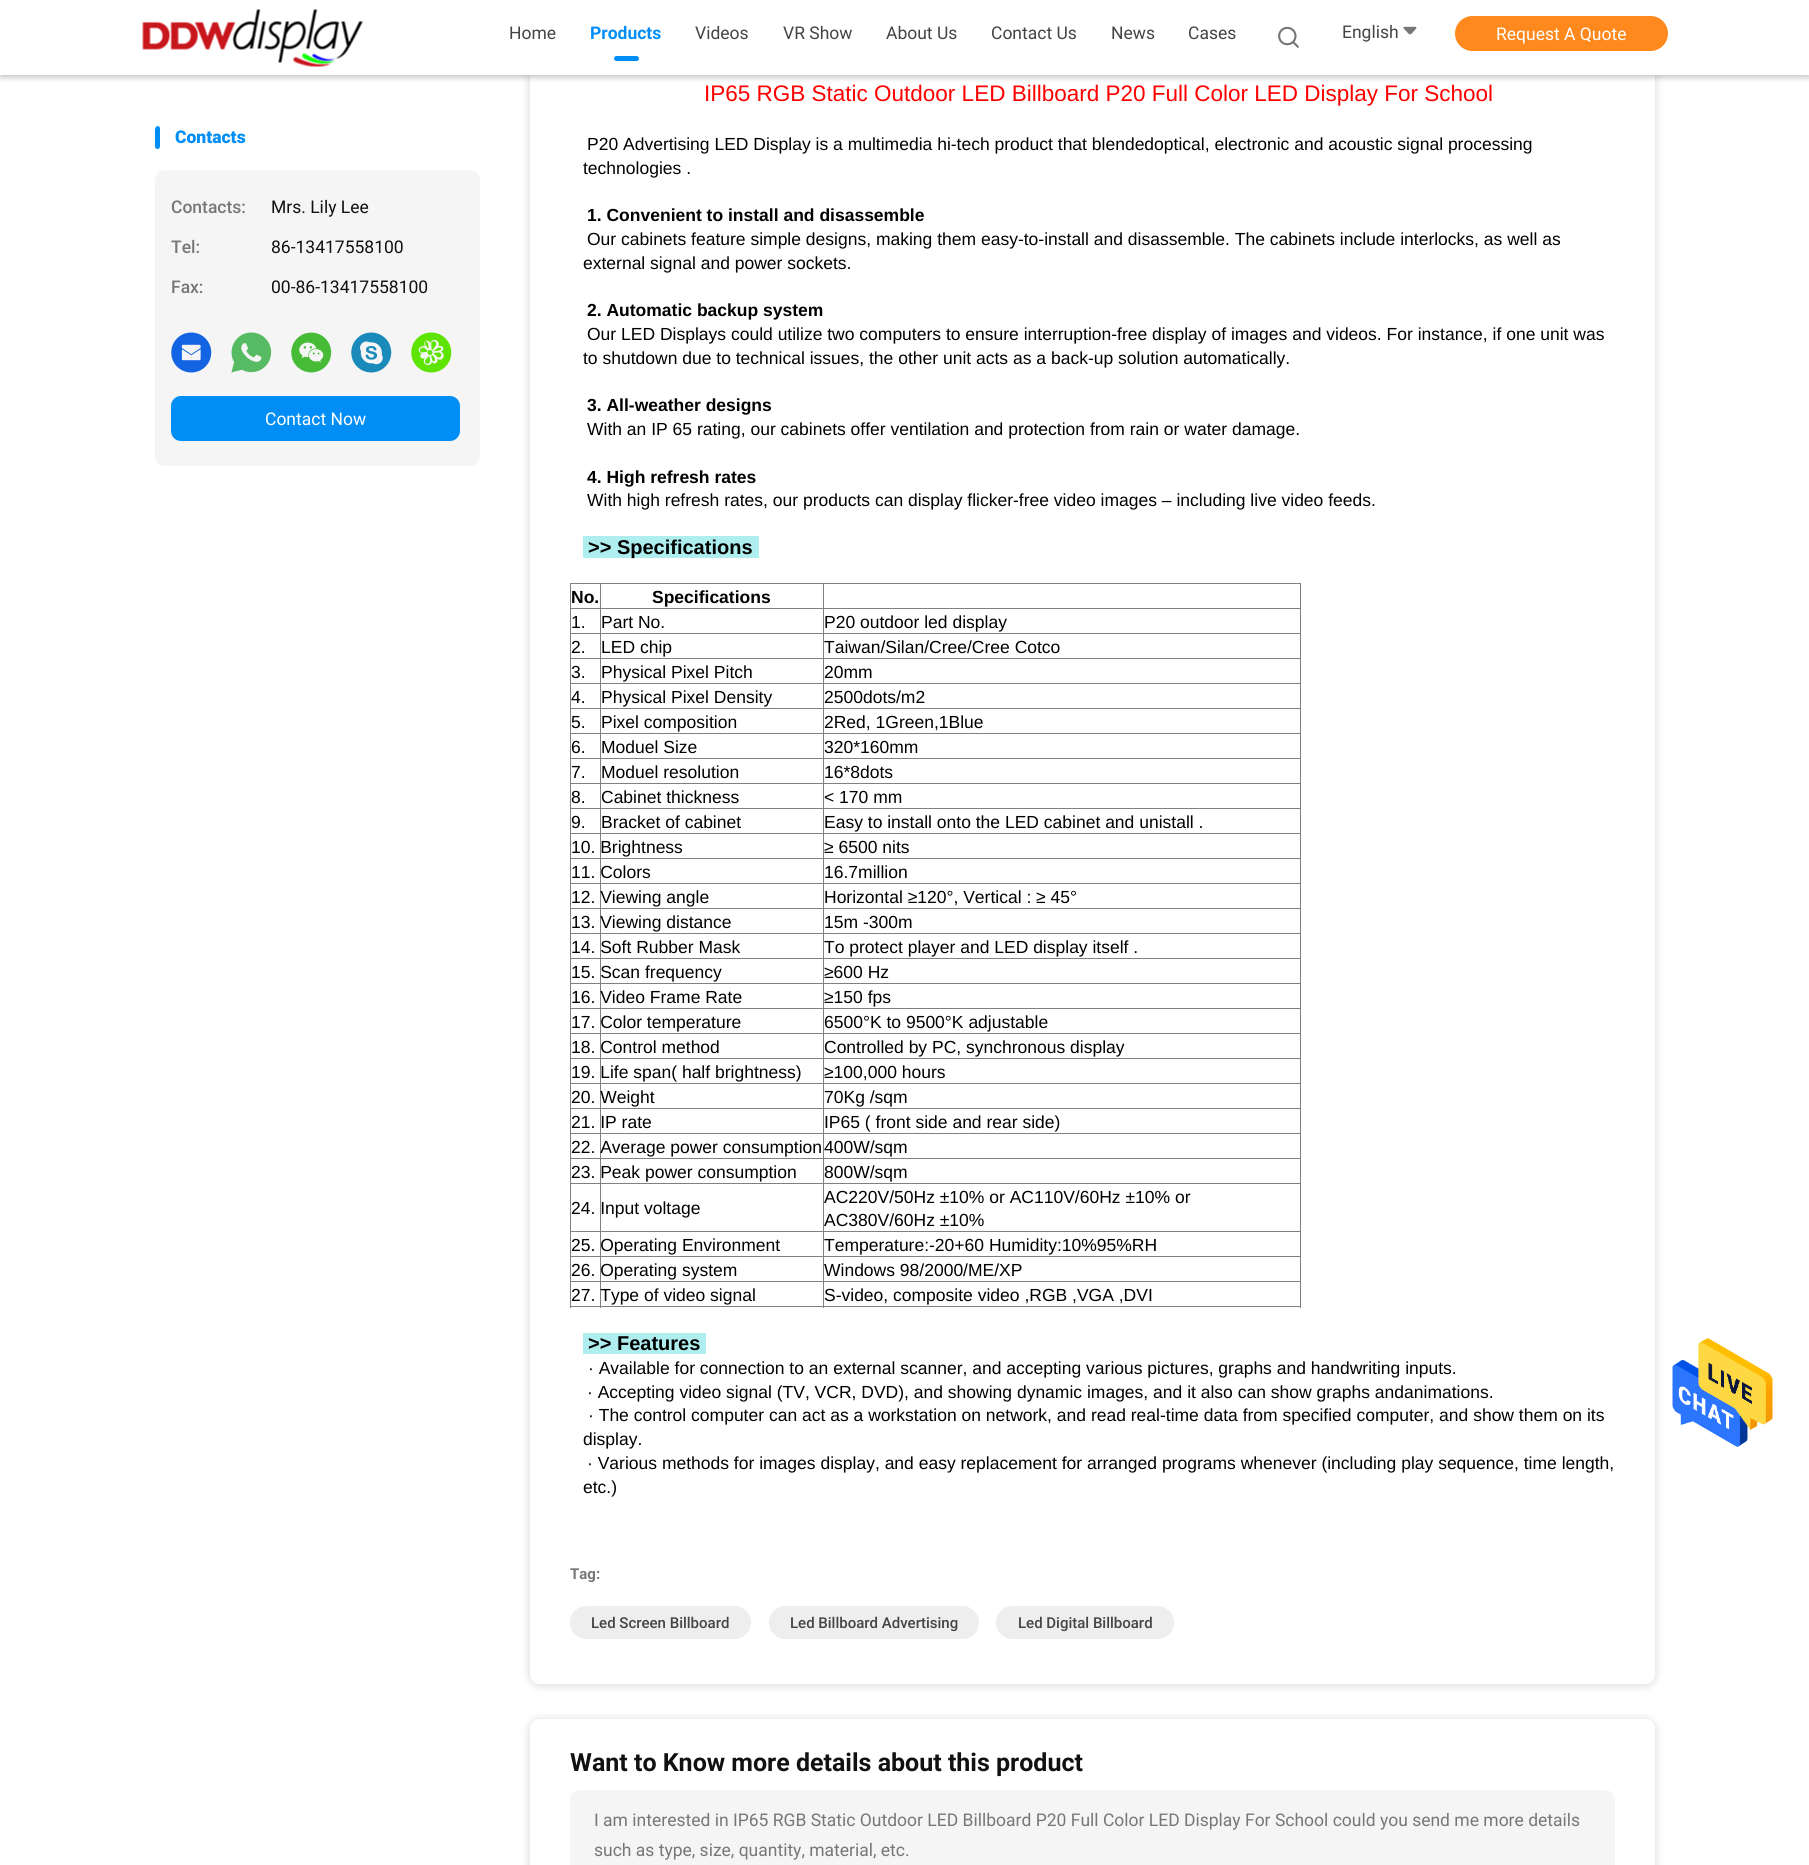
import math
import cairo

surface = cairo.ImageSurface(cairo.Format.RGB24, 1809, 1865)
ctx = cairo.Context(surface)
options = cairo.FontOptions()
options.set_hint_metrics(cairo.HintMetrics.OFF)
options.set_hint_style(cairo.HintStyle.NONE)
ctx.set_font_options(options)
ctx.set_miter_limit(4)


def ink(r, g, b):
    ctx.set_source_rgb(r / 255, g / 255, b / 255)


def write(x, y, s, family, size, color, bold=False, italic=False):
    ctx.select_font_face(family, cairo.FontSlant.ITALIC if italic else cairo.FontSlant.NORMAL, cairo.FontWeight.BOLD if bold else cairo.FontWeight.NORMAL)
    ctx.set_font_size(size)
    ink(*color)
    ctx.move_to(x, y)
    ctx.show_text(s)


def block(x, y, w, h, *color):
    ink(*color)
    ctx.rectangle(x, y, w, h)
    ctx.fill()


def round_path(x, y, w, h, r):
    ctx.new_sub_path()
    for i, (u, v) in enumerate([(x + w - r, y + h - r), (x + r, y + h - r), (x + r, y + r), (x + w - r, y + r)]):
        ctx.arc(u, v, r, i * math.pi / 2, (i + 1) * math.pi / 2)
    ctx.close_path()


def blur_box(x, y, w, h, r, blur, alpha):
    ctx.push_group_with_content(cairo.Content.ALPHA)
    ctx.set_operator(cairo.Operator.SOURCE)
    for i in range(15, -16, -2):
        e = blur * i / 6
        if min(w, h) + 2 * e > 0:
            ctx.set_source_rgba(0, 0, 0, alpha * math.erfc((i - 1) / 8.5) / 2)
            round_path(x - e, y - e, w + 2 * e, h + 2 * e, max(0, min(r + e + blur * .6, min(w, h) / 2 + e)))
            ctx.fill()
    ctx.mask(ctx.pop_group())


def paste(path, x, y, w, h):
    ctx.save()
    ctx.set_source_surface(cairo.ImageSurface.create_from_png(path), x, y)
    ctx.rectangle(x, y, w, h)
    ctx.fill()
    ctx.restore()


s1 = dict(family="Roboto", size=17.5, color=(68, 68, 68))
s2 = dict(family="Roboto", size=17.5, color=(0, 142, 246), bold=True)
s3 = dict(family="Roboto", size=17.5, color=(255, 255, 255))
s4 = dict(family="Roboto Black", size=17.5, color=(0, 142, 246))
s5 = dict(family="Roboto Medium", size=17.5, color=(119, 119, 119))
s6 = dict(family="Roboto", size=17.5, color=(17, 17, 17))
s7 = dict(family="Liberation Sans", size=22.5, color=(255, 0, 0))
s8 = dict(family="Liberation Sans", size=17.5, color=(0, 0, 0))
s9 = dict(family="Liberation Sans", size=17.5, color=(0, 0, 0), bold=True)
s10 = dict(family="Liberation Sans", size=20, color=(0, 0, 0), bold=True)
s11 = dict(family="Roboto", size=15, color=(119, 119, 119), bold=True)
s12 = dict(family="Roboto Medium", size=15, color=(68, 68, 68))
s13 = dict(family="Roboto", size=25, color=(17, 17, 17), bold=True)
s14 = dict(family="Roboto", size=17.5, color=(119, 119, 119))

ink(255, 255, 255)
ctx.paint()
ink(0, 0, 0)
blur_box(0, 3, 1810, 75, 0, 2.5, 0.2)
ctx.save()
ctx.set_fill_rule(cairo.FillRule.EVEN_ODD)
ctx.new_path()
ctx.move_to(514, 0)
ctx.line_to(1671, 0)
ctx.line_to(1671, 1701)
ctx.line_to(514, 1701)
ctx.close_path()
ctx.move_to(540, -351)
ctx.line_to(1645, -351)
ctx.curve_to(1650.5, -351, 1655, -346.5, 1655, -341)
ctx.line_to(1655, 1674)
ctx.curve_to(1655, 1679.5, 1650.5, 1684, 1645, 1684)
ctx.line_to(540, 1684)
ctx.curve_to(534.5, 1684, 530, 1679.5, 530, 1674)
ctx.line_to(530, -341)
ctx.curve_to(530, -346.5, 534.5, -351, 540, -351)
ctx.close_path()
ctx.clip()
blur_box(530, -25, 1125, 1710, 10, 5, 0.16)
ctx.restore()
block(0, 0, 1809, 75, 255, 255, 255)
paste("pic1.png", 142, 9, 221, 58)
write(509, 39, "Home", **s1)
write(590, 39, "Products", **s2)
round_path(614, 56, 25, 5, 2.5)
ctx.fill()
write(695, 39, "Videos", **s1)
write(783, 39, "VR Show", **s1)
write(886, 39, "About Us", **s1)
write(991, 39, "Contact Us", **s1)
write(1111, 39, "News", **s1)
write(1188, 39, "Cases", **s1)
paste("pic2.png", 1278, 26, 21, 22)
write(1342, 38, "English", **s1)
paste("pic3.png", 1403, 26, 14, 9)
ink(255, 137, 28)
round_path(1455, 16, 213, 35, 17.5)
ctx.fill()
write(1496, 40, "Request A Quote", **s3)
ctx.save()
round_path(155, 125, 325, 341, 5)
ctx.clip()
ink(0, 142, 246)
round_path(155, 126, 5, 23, 2.5)
ctx.fill()
ctx.restore()
write(175, 143, "Contacts", **s4)
ink(245, 245, 245)
round_path(155, 170, 325, 296, 10)
ctx.fill()
write(171, 213, "Contacts:", **s5)
write(271, 213, "Mrs. Lily Lee", **s6)
write(171, 253, "Tel:", **s5)
write(271, 253, "86-13417558100", **s6)
write(171, 293, "Fax:", **s5)
write(271, 293, "00-86-13417558100", **s6)
paste("pic4.png", 171, 332, 41, 41)
paste("pic5.png", 231, 332, 41, 41)
paste("pic6.png", 291, 332, 41, 41)
paste("pic7.png", 351, 332, 41, 41)
paste("pic8.png", 411, 332, 41, 41)
ink(0, 142, 246)
round_path(171, 396, 289, 45, 10)
ctx.fill()
write(265, 425, "Contact Now", **s3)
write(704, 101, "IP65 RGB Static Outdoor LED Billboard P20 Full Color LED Display For School", **s7)
write(587, 150, "P20 Advertising LED Display is a multimedia hi-tech product that blendedoptical, electronic and acoustic signal processing", **s8)
write(583, 174, "technologies .", **s8)
write(587, 221, "1. Convenient to install and disassemble", **s9)
write(587, 245, "Our cabinets feature simple designs, making them easy-to-install and disassemble. The cabinets include interlocks, as well as", **s8)
write(583, 269, "external signal and power sockets.", **s8)
write(587, 316, "2. Automatic backup system", **s9)
write(587, 340, "Our LED Displays could utilize two computers to ensure interruption-free display of images and videos. For instance, if one unit was", **s8)
write(583, 364, "to shutdown due to technical issues, the other unit acts as a back-up solution automatically.", **s8)
write(587, 411, "3. All-weather designs", **s9)
write(587, 435, "With an IP 65 rating, our cabinets offer ventilation and protection from rain or water damage.", **s8)
write(587, 483, "4. High refresh rates", **s9)
write(587, 506, "With high refresh rates, our products can display flicker-free video images – including live video feeds.", **s8)
block(583, 536, 176, 22, 175, 238, 238)
write(588, 554, ">> Specifications", **s10)
block(570, 583, 731, 1, 128, 128, 128)
block(1300, 583, 1, 725, 128, 128, 128)
block(570, 1306, 731, 1, 128, 128, 128)
block(570, 583, 1, 725, 128, 128, 128)
write(571, 603, "No.", **s9)
block(823, 608, 478, 1, 128, 128, 128)
block(823, 633, 478, 1, 128, 128, 128)
block(823, 658, 478, 1, 128, 128, 128)
block(823, 683, 478, 1, 128, 128, 128)
block(823, 708, 478, 1, 128, 128, 128)
block(823, 733, 478, 1, 128, 128, 128)
block(823, 758, 478, 1, 128, 128, 128)
block(823, 783, 478, 1, 128, 128, 128)
block(823, 808, 478, 1, 128, 128, 128)
block(823, 833, 478, 1, 128, 128, 128)
block(823, 858, 478, 1, 128, 128, 128)
block(823, 883, 478, 1, 128, 128, 128)
block(823, 908, 478, 1, 128, 128, 128)
block(823, 933, 478, 1, 128, 128, 128)
block(823, 958, 478, 1, 128, 128, 128)
block(823, 983, 478, 1, 128, 128, 128)
block(823, 1008, 478, 1, 128, 128, 128)
block(823, 1033, 478, 1, 128, 128, 128)
block(823, 1058, 478, 1, 128, 128, 128)
block(823, 1083, 478, 1, 128, 128, 128)
block(823, 1108, 478, 1, 128, 128, 128)
block(823, 1133, 478, 1, 128, 128, 128)
block(823, 1158, 478, 1, 128, 128, 128)
block(823, 1183, 478, 1, 128, 128, 128)
block(823, 1231, 478, 1, 128, 128, 128)
block(823, 1256, 478, 1, 128, 128, 128)
block(823, 1281, 478, 1, 128, 128, 128)
block(823, 1281, 1, 27, 128, 128, 128)
block(600, 1281, 224, 1, 128, 128, 128)
block(823, 1256, 1, 27, 128, 128, 128)
block(600, 1256, 224, 1, 128, 128, 128)
block(823, 1231, 1, 27, 128, 128, 128)
block(600, 1231, 224, 1, 128, 128, 128)
block(823, 1183, 1, 50, 128, 128, 128)
block(600, 1183, 224, 1, 128, 128, 128)
block(823, 1158, 1, 26, 128, 128, 128)
block(600, 1158, 224, 1, 128, 128, 128)
block(823, 1133, 1, 26, 128, 128, 128)
block(600, 1133, 224, 1, 128, 128, 128)
block(823, 1108, 1, 26, 128, 128, 128)
block(600, 1108, 224, 1, 128, 128, 128)
block(823, 1083, 1, 26, 128, 128, 128)
block(600, 1083, 224, 1, 128, 128, 128)
block(823, 1058, 1, 26, 128, 128, 128)
block(600, 1058, 224, 1, 128, 128, 128)
block(823, 1033, 1, 26, 128, 128, 128)
block(600, 1033, 224, 1, 128, 128, 128)
block(823, 1008, 1, 26, 128, 128, 128)
block(600, 1008, 224, 1, 128, 128, 128)
block(823, 983, 1, 26, 128, 128, 128)
block(600, 983, 224, 1, 128, 128, 128)
block(823, 958, 1, 26, 128, 128, 128)
block(600, 958, 224, 1, 128, 128, 128)
block(823, 933, 1, 26, 128, 128, 128)
block(600, 933, 224, 1, 128, 128, 128)
block(823, 908, 1, 26, 128, 128, 128)
block(600, 908, 224, 1, 128, 128, 128)
block(823, 883, 1, 26, 128, 128, 128)
block(600, 883, 224, 1, 128, 128, 128)
block(823, 858, 1, 26, 128, 128, 128)
block(600, 858, 224, 1, 128, 128, 128)
block(823, 833, 1, 26, 128, 128, 128)
block(600, 833, 224, 1, 128, 128, 128)
block(823, 808, 1, 26, 128, 128, 128)
block(600, 808, 224, 1, 128, 128, 128)
block(823, 783, 1, 26, 128, 128, 128)
block(600, 783, 224, 1, 128, 128, 128)
block(823, 758, 1, 26, 128, 128, 128)
block(600, 758, 224, 1, 128, 128, 128)
block(823, 733, 1, 26, 128, 128, 128)
block(600, 733, 224, 1, 128, 128, 128)
block(823, 708, 1, 26, 128, 128, 128)
block(600, 708, 224, 1, 128, 128, 128)
block(823, 683, 1, 26, 128, 128, 128)
block(600, 683, 224, 1, 128, 128, 128)
block(823, 658, 1, 26, 128, 128, 128)
block(600, 658, 224, 1, 128, 128, 128)
block(823, 633, 1, 26, 128, 128, 128)
block(600, 633, 224, 1, 128, 128, 128)
block(823, 608, 1, 26, 128, 128, 128)
block(600, 608, 224, 1, 128, 128, 128)
block(600, 1281, 1, 27, 128, 128, 128)
block(570, 1281, 31, 1, 128, 128, 128)
block(600, 1256, 1, 27, 128, 128, 128)
block(570, 1256, 31, 1, 128, 128, 128)
block(600, 1231, 1, 27, 128, 128, 128)
block(570, 1231, 31, 1, 128, 128, 128)
block(600, 1183, 1, 50, 128, 128, 128)
block(570, 1183, 31, 1, 128, 128, 128)
block(600, 1158, 1, 26, 128, 128, 128)
block(570, 1158, 31, 1, 128, 128, 128)
block(600, 1133, 1, 26, 128, 128, 128)
block(570, 1133, 31, 1, 128, 128, 128)
block(600, 1108, 1, 26, 128, 128, 128)
block(570, 1108, 31, 1, 128, 128, 128)
block(600, 1083, 1, 26, 128, 128, 128)
block(570, 1083, 31, 1, 128, 128, 128)
block(600, 1058, 1, 26, 128, 128, 128)
block(570, 1058, 31, 1, 128, 128, 128)
block(600, 1033, 1, 26, 128, 128, 128)
block(570, 1033, 31, 1, 128, 128, 128)
block(600, 1008, 1, 26, 128, 128, 128)
block(570, 1008, 31, 1, 128, 128, 128)
block(600, 983, 1, 26, 128, 128, 128)
block(570, 983, 31, 1, 128, 128, 128)
block(600, 958, 1, 26, 128, 128, 128)
block(570, 958, 31, 1, 128, 128, 128)
block(600, 933, 1, 26, 128, 128, 128)
block(570, 933, 31, 1, 128, 128, 128)
block(600, 908, 1, 26, 128, 128, 128)
block(570, 908, 31, 1, 128, 128, 128)
block(600, 883, 1, 26, 128, 128, 128)
block(570, 883, 31, 1, 128, 128, 128)
block(600, 858, 1, 26, 128, 128, 128)
block(570, 858, 31, 1, 128, 128, 128)
block(600, 833, 1, 26, 128, 128, 128)
block(570, 833, 31, 1, 128, 128, 128)
block(600, 808, 1, 26, 128, 128, 128)
block(570, 808, 31, 1, 128, 128, 128)
block(600, 783, 1, 26, 128, 128, 128)
block(570, 783, 31, 1, 128, 128, 128)
block(600, 758, 1, 26, 128, 128, 128)
block(570, 758, 31, 1, 128, 128, 128)
block(600, 733, 1, 26, 128, 128, 128)
block(570, 733, 31, 1, 128, 128, 128)
block(600, 708, 1, 26, 128, 128, 128)
block(570, 708, 31, 1, 128, 128, 128)
block(600, 683, 1, 26, 128, 128, 128)
block(570, 683, 31, 1, 128, 128, 128)
block(600, 658, 1, 26, 128, 128, 128)
block(570, 658, 31, 1, 128, 128, 128)
block(600, 633, 1, 26, 128, 128, 128)
block(570, 633, 31, 1, 128, 128, 128)
block(600, 608, 1, 26, 128, 128, 128)
block(570, 608, 31, 1, 128, 128, 128)
block(600, 583, 1, 26, 128, 128, 128)
write(652, 603, "Specifications", **s9)
block(823, 583, 1, 26, 128, 128, 128)
write(571, 628, "1.", **s8)
write(601, 628, "Part No.", **s8)
write(824, 628, "P20 outdoor led display", **s8)
write(571, 653, "2.", **s8)
write(601, 653, "LED chip", **s8)
write(824, 653, "Taiwan/Silan/Cree/Cree Cotco", **s8)
write(571, 678, "3.", **s8)
write(601, 678, "Physical Pixel Pitch", **s8)
write(824, 678, "20mm", **s8)
write(571, 703, "4.", **s8)
write(601, 703, "Physical Pixel Density", **s8)
write(824, 703, "2500dots/m2", **s8)
write(571, 728, "5.", **s8)
write(601, 728, "Pixel composition", **s8)
write(824, 728, "2Red, 1Green,1Blue", **s8)
write(571, 753, "6.", **s8)
write(601, 753, "Moduel Size", **s8)
write(824, 753, "320*160mm", **s8)
write(571, 778, "7.", **s8)
write(601, 778, "Moduel resolution", **s8)
write(824, 778, "16*8dots", **s8)
write(571, 803, "8.", **s8)
write(601, 803, "Cabinet thickness", **s8)
write(824, 803, "< 170 mm", **s8)
write(571, 828, "9.", **s8)
write(601, 828, "Bracket of cabinet", **s8)
write(824, 828, "Easy to install onto the LED cabinet and unistall .", **s8)
write(571, 853, "10. Brightness", **s8)
write(824, 853, "≥ 6500 nits", **s8)
write(571, 878, "11. Colors", **s8)
write(824, 878, "16.7million", **s8)
write(571, 903, "12. Viewing angle", **s8)
write(824, 903, "Horizontal ≥120°, Vertical : ≥ 45°", **s8)
write(571, 928, "13. Viewing distance", **s8)
write(824, 928, "15m -300m", **s8)
write(571, 953, "14. Soft Rubber Mask", **s8)
write(824, 953, "To protect player and LED display itself .", **s8)
write(571, 978, "15. Scan frequency", **s8)
write(824, 978, "≥600 Hz", **s8)
write(571, 1003, "16. Video Frame Rate", **s8)
write(824, 1003, "≥150 fps", **s8)
write(571, 1028, "17. Color temperature", **s8)
write(824, 1028, "6500°K to 9500°K adjustable", **s8)
write(571, 1053, "18. Control method", **s8)
write(824, 1053, "Controlled by PC, synchronous display", **s8)
write(571, 1078, "19. Life span( half brightness)", **s8)
write(824, 1078, "≥100,000 hours", **s8)
write(571, 1103, "20. Weight", **s8)
write(824, 1103, "70Kg /sqm", **s8)
write(571, 1128, "21. IP rate", **s8)
write(824, 1128, "IP65 ( front side and rear side)", **s8)
write(571, 1153, "22. Average power consumption", **s8)
write(824, 1153, "400W/sqm", **s8)
write(571, 1178, "23. Peak power consumption", **s8)
write(824, 1178, "800W/sqm", **s8)
write(824, 1203, "AC220V/50Hz ±10% or AC110V/60Hz ±10% or", **s8)
write(824, 1226, "AC380V/60Hz ±10%", **s8)
write(571, 1214, "24. Input voltage", **s8)
write(571, 1251, "25. Operating Environment", **s8)
write(824, 1251, "Temperature:-20+60 Humidity:10%95%RH", **s8)
write(571, 1276, "26. Operating system", **s8)
write(824, 1276, "Windows 98/2000/ME/XP", **s8)
write(571, 1301, "27. Type of video signal", **s8)
write(824, 1301, "S-video, composite video ,RGB ,VGA ,DVI", **s8)
block(583, 1333, 123, 21, 175, 238, 238)
write(588, 1350, ">> Features", **s10)
write(588, 1374, "· Available for connection to an external scanner, and accepting various pictures, graphs and handwriting inputs.", **s8)
write(587, 1398, "· Accepting video signal (TV, VCR, DVD), and showing dynamic images, and it also can show graphs andanimations.", **s8)
write(588, 1421, "· The control computer can act as a workstation on network, and read real-time data from specified computer, and show them on its", **s8)
write(583, 1445, "display.", **s8)
write(587, 1469, "· Various methods for images display, and easy replacement for arranged programs whenever (including play sequence, time length,", **s8)
write(583, 1493, "etc.)", **s8)
write(570, 1579, "Tag:", **s11)
ink(238, 238, 238)
round_path(570, 1606, 181, 33, 16.5)
ctx.fill()
write(591, 1628, "Led Screen Billboard", **s12)
ink(238, 238, 238)
round_path(769, 1606, 210, 33, 16.5)
ctx.fill()
write(790, 1628, "Led Billboard Advertising", **s12)
ink(238, 238, 238)
round_path(996, 1606, 178, 33, 16.5)
ctx.fill()
write(1018, 1628, "Led Digital Billboard", **s12)
ctx.save()
ctx.set_fill_rule(cairo.FillRule.EVEN_ODD)
ctx.new_path()
ctx.move_to(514, 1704)
ctx.line_to(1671, 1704)
ctx.line_to(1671, 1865)
ctx.line_to(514, 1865)
ctx.close_path()
ctx.move_to(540, 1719)
ctx.line_to(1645, 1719)
ctx.curve_to(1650.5, 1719, 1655, 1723.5, 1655, 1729)
ctx.line_to(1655, 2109)
ctx.curve_to(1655, 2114.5, 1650.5, 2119, 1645, 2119)
ctx.line_to(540, 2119)
ctx.curve_to(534.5, 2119, 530, 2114.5, 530, 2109)
ctx.line_to(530, 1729)
ctx.curve_to(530, 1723.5, 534.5, 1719, 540, 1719)
ctx.close_path()
ctx.clip()
ink(0, 0, 0)
blur_box(530, 1720, 1125, 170, 10, 5, 0.16)
ctx.restore()
write(570, 1771, "Want to Know more details about this product", **s13)
ink(245, 245, 245)
round_path(570, 1790, 1045, 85, 10)
ctx.fill()
write(594, 1826, "I am interested in IP65 RGB Static Outdoor LED Billboard P20 Full Color LED Display For School could you send me more details", **s14)
write(594, 1856, "such as type, size, quantity, material, etc.", **s14)
paste("pic9.png", 1672, 1338, 101, 109)
surface.write_to_png("screenshot.png")
